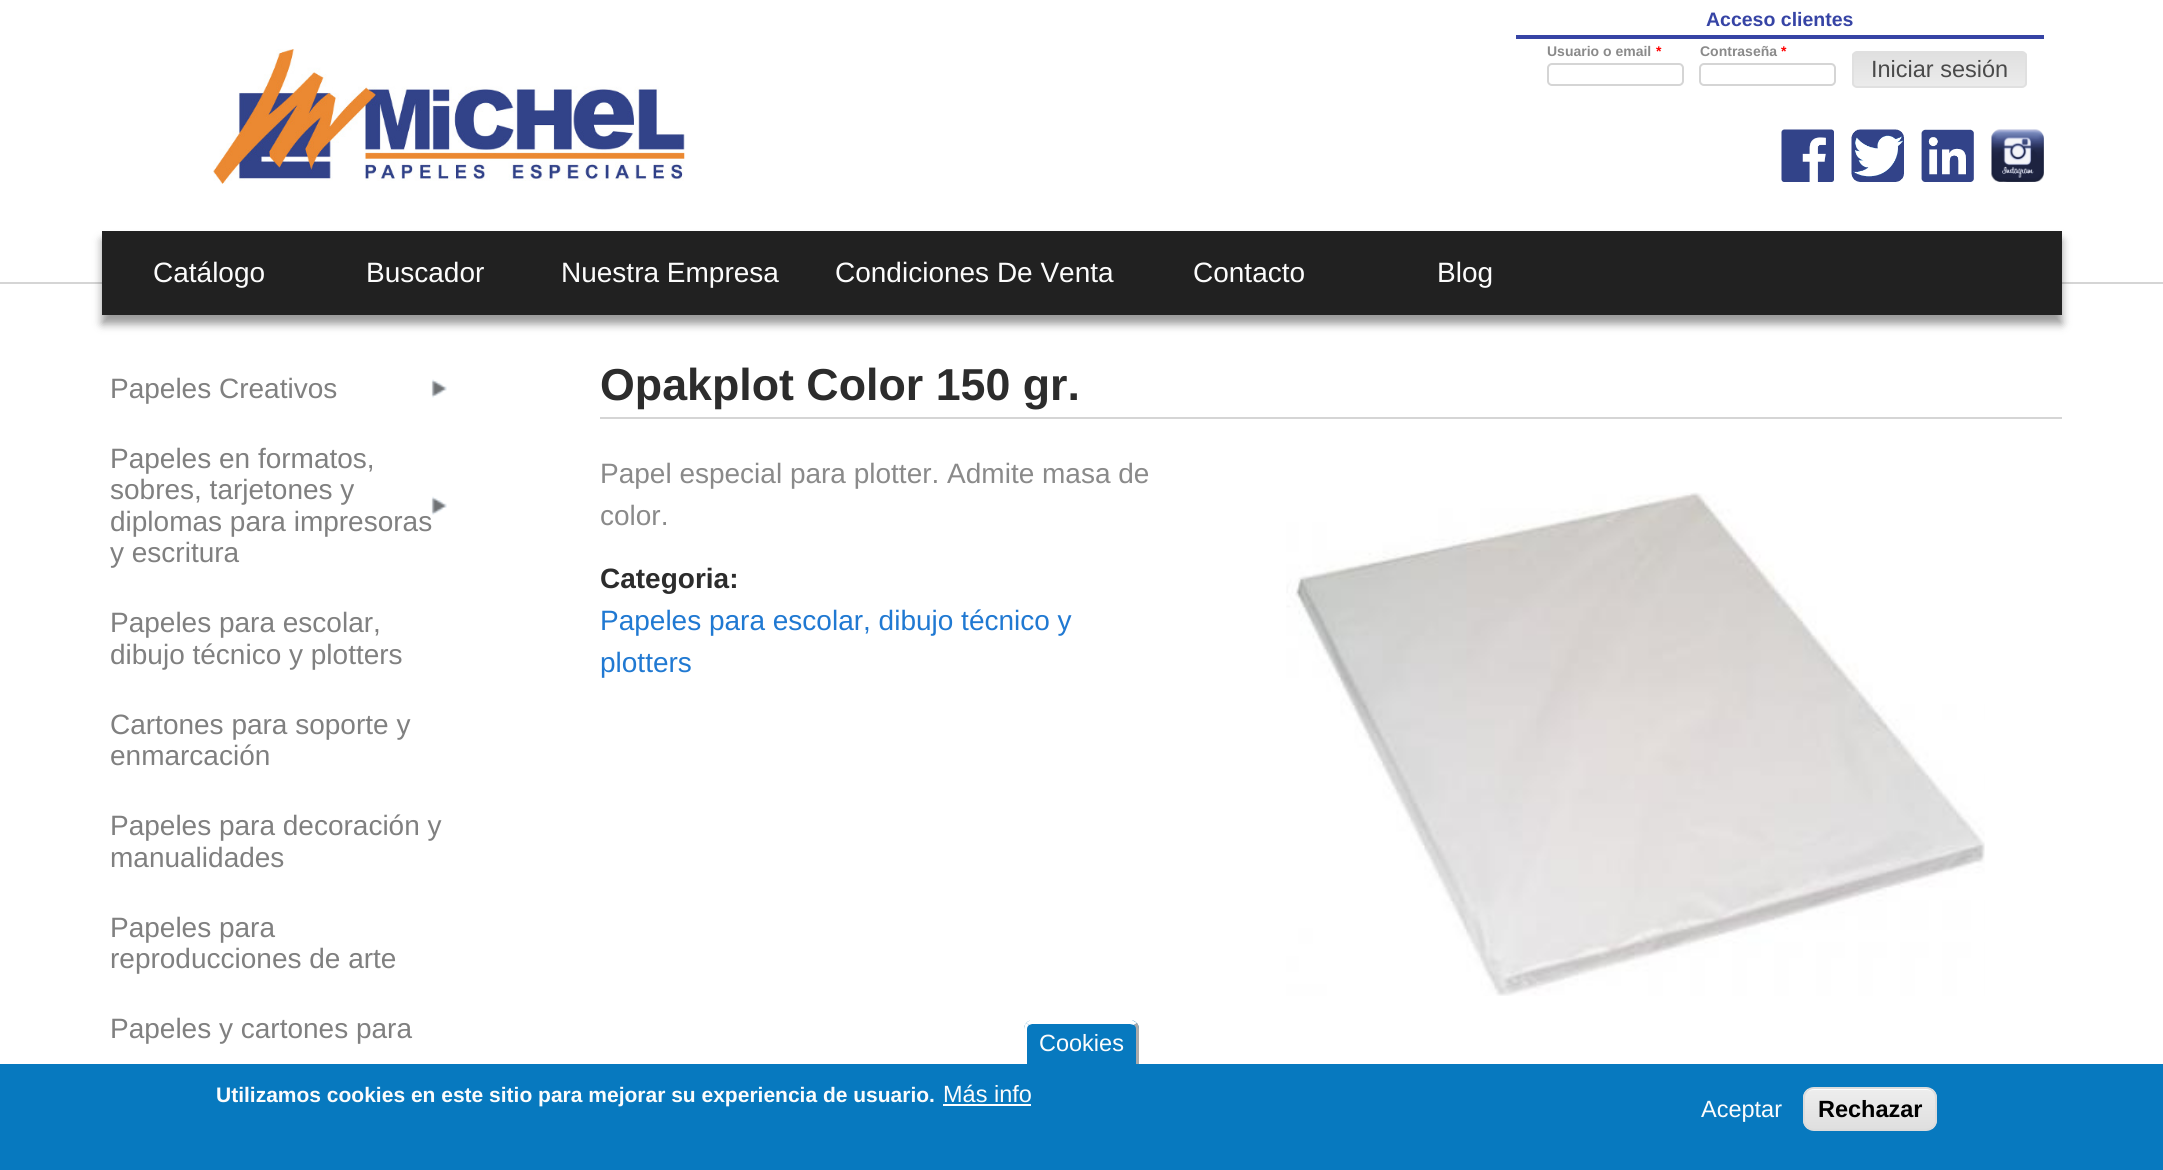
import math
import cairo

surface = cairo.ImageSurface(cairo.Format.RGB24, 2163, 1170)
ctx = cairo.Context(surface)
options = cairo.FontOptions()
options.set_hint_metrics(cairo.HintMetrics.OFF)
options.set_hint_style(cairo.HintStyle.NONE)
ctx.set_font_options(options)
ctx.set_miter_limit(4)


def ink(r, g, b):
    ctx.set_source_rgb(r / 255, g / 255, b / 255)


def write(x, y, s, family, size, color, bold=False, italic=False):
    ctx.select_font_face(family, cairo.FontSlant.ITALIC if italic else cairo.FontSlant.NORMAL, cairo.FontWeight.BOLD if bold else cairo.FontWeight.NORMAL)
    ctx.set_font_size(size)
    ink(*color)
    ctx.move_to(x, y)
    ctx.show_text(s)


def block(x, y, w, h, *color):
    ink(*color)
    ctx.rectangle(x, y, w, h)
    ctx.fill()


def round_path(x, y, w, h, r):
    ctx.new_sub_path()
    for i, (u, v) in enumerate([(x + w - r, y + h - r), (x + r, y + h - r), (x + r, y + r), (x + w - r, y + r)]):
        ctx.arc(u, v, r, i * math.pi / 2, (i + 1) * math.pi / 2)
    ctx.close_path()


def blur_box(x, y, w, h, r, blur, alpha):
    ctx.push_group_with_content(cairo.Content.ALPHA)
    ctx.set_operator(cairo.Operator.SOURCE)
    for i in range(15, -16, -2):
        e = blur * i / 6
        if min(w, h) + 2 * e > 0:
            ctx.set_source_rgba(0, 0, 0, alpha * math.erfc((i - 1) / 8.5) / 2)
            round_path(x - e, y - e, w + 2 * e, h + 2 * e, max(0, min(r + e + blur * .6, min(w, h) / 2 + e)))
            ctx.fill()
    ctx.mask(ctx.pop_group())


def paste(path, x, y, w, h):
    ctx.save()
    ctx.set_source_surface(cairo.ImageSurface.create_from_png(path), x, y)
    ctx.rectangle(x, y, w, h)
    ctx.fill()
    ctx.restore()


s1 = dict(family="Liberation Sans", size=19.5, color=(54, 68, 165), bold=True)
s2 = dict(family="Liberation Sans", size=14, color=(138, 138, 138), bold=True)
s3 = dict(family="Liberation Sans", size=14, color=(255, 0, 0), bold=True)
s4 = dict(family="Liberation Sans", size=23.5, color=(74, 74, 74))
s5 = dict(family="Liberation Sans", size=28, color=(252, 252, 252))
s6 = dict(family="Liberation Sans", size=28, color=(128, 128, 128))
s7 = dict(family="Liberation Sans", size=44.75, color=(44, 44, 44), bold=True)
s8 = dict(family="Liberation Sans", size=28, color=(138, 138, 138))
s9 = dict(family="Liberation Sans", size=28, color=(44, 44, 44), bold=True)
s10 = dict(family="Liberation Sans", size=28, color=(32, 121, 210))
s11 = dict(family="Liberation Sans", size=23.5, color=(252, 252, 252))
s12 = dict(family="Liberation Sans", size=21, color=(252, 252, 252), bold=True)
s13 = dict(family="Liberation Sans", size=23.5, color=(0, 0, 0), bold=True)

ink(255, 255, 255)
ctx.paint()
paste("pic1.png", 213, 49, 472, 135)
block(1516, 35, 528, 4, 54, 68, 165)
write(1706, 26, "Acceso clientes", **s1)
write(1547, 56, "Usuario o email", **s2)
write(1656, 56, "*", **s3)
round_path(1548, 64, 135, 21, 4)
ink(213, 213, 213)
ctx.stroke()
write(1700, 56, "Contraseña", **s2)
write(1781, 56, "*", **s3)
round_path(1700, 64, 135, 21, 4)
ink(213, 213, 213)
ctx.stroke()
ctx.save()
round_path(1852, 51, 175, 37, 5)
ctx.clip()
gradient = cairo.LinearGradient(1939, 52, 1939, 86)
gradient.add_color_stop_rgba(0, 0.878, 0.878, 0.878, 1)
gradient.add_color_stop_rgba(1, 0.922, 0.922, 0.922, 1)
ctx.set_source(gradient)
ctx.rectangle(1852, 53, 175, 33)
ctx.fill()
ctx.restore()
round_path(1853, 52, 173, 35, 4)
ink(224, 224, 224)
ctx.stroke()
write(1871, 77, "Iniciar sesión", **s4)
paste("pic2.png", 1781, 129, 53, 53)
paste("pic3.png", 1851, 129, 53, 53)
paste("pic4.png", 1921, 129, 53, 53)
paste("pic5.png", 1991, 129, 53, 53)
block(0, 282, 2163, 2, 213, 213, 213)
ink(0, 0, 0)
blur_box(102, 240, 1960, 84, 0, 4.5, 0.4)
block(102, 231, 1960, 84, 33, 33, 33)
write(153, 282, "Catálogo", **s5)
write(366, 282, "Buscador", **s5)
write(561, 282, "Nuestra Empresa", **s5)
write(835, 282, "Condiciones De Venta", **s5)
write(1193, 282, "Contacto", **s5)
write(1437, 282, "Blog", **s5)
paste("pic6.png", 431, 379, 16, 19)
write(110, 398, "Papeles Creativos", **s6)
paste("pic7.png", 431, 496, 16, 19)
write(110, 468, "Papeles en formatos,", **s6)
write(110, 499, "sobres, tarjetones y", **s6)
write(110, 531, "diplomas para impresoras", **s6)
write(110, 562, "y escritura", **s6)
write(110, 632, "Papeles para escolar,", **s6)
write(110, 664, "dibujo técnico y plotters", **s6)
write(110, 734, "Cartones para soporte y", **s6)
write(110, 765, "enmarcación", **s6)
write(110, 835, "Papeles para decoración y", **s6)
write(110, 867, "manualidades", **s6)
write(110, 937, "Papeles para", **s6)
write(110, 968, "reproducciones de arte", **s6)
write(110, 1038, "Papeles y cartones para", **s6)
block(600, 417, 1462, 2, 213, 213, 213)
write(600, 400, "Opakplot Color 150 gr.", **s7)
write(600, 483, "Papel especial para plotter. Admite masa de", **s8)
write(600, 525, "color.", **s8)
paste("pic8.png", 1286, 492, 699, 504)
write(600, 588, "Categoria:", **s9)
write(600, 630, "Papeles para escolar, dibujo técnico y", **s10)
write(600, 672, "plotters", **s10)
block(0, 1064, 2163, 106, 7, 121, 191)
ctx.new_path()
ctx.move_to(1033, 1020)
ctx.line_to(1130, 1020)
ctx.curve_to(1135, 1020, 1139, 1024, 1139, 1029)
ctx.line_to(1139, 1064)
ctx.line_to(1024, 1064)
ctx.line_to(1024, 1029)
ctx.curve_to(1024, 1024, 1028, 1020, 1033, 1020)
ctx.close_path()
ctx.fill()
ink(255, 255, 255)
ctx.new_path()
ctx.move_to(1032, 1024)
ctx.line_to(1029, 1025)
ctx.line_to(1026, 1023)
ctx.curve_to(1027, 1022, 1029, 1021, 1030, 1020)
ctx.line_to(1132, 1020)
ctx.curve_to(1134, 1021, 1135, 1022, 1137, 1023)
ctx.line_to(1134, 1025)
ctx.line_to(1130, 1024)
ctx.close_path()
ctx.fill()
ink(170, 170, 170)
ctx.new_path()
ctx.move_to(1136, 1064)
ctx.line_to(1139, 1064)
ctx.line_to(1139, 1029)
ctx.curve_to(1139, 1027, 1138, 1024, 1137, 1023)
ctx.line_to(1134, 1025)
ctx.curve_to(1135, 1026, 1136, 1027, 1136, 1029)
ctx.close_path()
ctx.fill()
ink(255, 255, 255)
ctx.new_path()
ctx.move_to(1024, 1064)
ctx.line_to(1027, 1064)
ctx.line_to(1027, 1029)
ctx.curve_to(1027, 1027, 1028, 1026, 1029, 1025)
ctx.line_to(1026, 1023)
ctx.curve_to(1025, 1024, 1024, 1027, 1024, 1029)
ctx.close_path()
ctx.fill()
write(1039, 1051, "Cookies", **s11)
write(216, 1102, "Utilizamos cookies en este sitio para mejorar su experiencia de usuario.", **s12)
write(943, 1102, "Más info", **s11)
block(943, 1104, 88, 2, 255, 255, 255)
write(1701, 1117, "Aceptar", **s11)
ctx.save()
round_path(1803, 1087, 134, 44, 11)
ctx.clip()
gradient = cairo.LinearGradient(1870, 1089, 1870, 1129)
gradient.add_color_stop_rgba(0.05, 0.929, 0.929, 0.929, 1)
gradient.add_color_stop_rgba(1, 0.875, 0.875, 0.875, 1)
ctx.set_source(gradient)
ctx.rectangle(1803, 1089, 134, 40)
ctx.fill()
ctx.restore()
ink(255, 255, 255)
ctx.new_path()
ctx.move_to(1813, 1090)
ctx.line_to(1927, 1090)
ctx.curve_to(1932, 1090, 1936, 1094, 1936, 1099)
ctx.curve_to(1936, 1084, 1917, 1089, 1908, 1089)
ctx.line_to(1832, 1089)
ctx.curve_to(1823, 1089, 1804, 1084, 1804, 1099)
ctx.curve_to(1804, 1094, 1808, 1090, 1813, 1090)
ctx.close_path()
ctx.fill()
round_path(1804, 1088, 132, 42, 10)
ink(220, 220, 220)
ctx.stroke()
write(1818, 1117, "Rechazar", **s13)
surface.write_to_png("screenshot.png")
